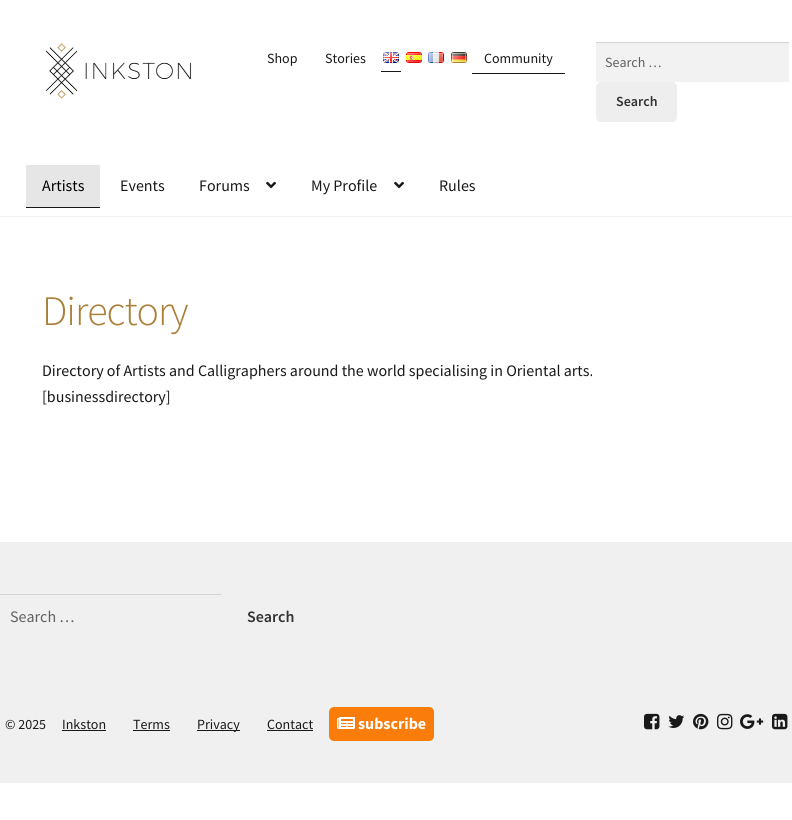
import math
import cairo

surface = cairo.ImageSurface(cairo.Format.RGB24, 792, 820)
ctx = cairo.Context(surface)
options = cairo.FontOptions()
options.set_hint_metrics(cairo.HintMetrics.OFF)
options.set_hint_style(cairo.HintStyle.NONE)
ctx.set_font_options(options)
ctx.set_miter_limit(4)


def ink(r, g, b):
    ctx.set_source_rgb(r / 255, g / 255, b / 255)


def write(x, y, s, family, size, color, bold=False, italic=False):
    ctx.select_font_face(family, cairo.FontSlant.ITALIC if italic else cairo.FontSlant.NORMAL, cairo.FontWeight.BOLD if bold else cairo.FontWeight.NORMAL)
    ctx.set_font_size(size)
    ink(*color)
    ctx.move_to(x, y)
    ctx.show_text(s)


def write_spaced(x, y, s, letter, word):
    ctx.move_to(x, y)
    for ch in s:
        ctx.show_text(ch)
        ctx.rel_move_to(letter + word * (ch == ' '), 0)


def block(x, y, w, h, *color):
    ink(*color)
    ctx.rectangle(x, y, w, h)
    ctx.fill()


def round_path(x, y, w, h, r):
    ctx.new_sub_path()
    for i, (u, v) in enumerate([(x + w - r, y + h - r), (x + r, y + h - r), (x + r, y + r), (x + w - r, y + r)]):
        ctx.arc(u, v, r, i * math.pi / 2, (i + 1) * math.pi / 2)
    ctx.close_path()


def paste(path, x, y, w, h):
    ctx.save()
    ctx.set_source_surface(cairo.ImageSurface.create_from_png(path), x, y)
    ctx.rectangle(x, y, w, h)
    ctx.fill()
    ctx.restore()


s1 = dict(family="Source Sans Pro", size=14, color=(26, 25, 25))
s2 = dict(family="Source Sans Pro", size=14, color=(97, 97, 97))
s3 = dict(family="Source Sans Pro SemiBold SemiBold", size=14, color=(51, 51, 51))
s4 = dict(family="Source Sans Pro", size=16, color=(1, 0, 0))
s5 = dict(family="Source Sans Pro", size=16, color=(26, 25, 25))
s6 = dict(family="Source Sans Pro", size=16, color=(97, 97, 97))
s7 = dict(family="Source Sans Pro SemiBold SemiBold", size=16, color=(51, 51, 51))
s8 = dict(family="Source Sans Pro", size=16, color=(255, 255, 255), bold=True)

ink(255, 255, 255)
ctx.paint()
block(0, 216, 792, 1, 240, 240, 240)
paste("pic1.png", 45, 43, 147, 56)
write(267, 63, "Shop", **s1)
write(325, 63, "Stories", **s1)
block(381, 71, 20, 1, 26, 25, 25)
paste("pic2.png", 383, 52, 16, 11)
paste("pic3.png", 406, 52, 16, 11)
paste("pic4.png", 428, 52, 16, 11)
paste("pic5.png", 451, 52, 16, 11)
block(472, 73, 93, 1, 26, 25, 25)
write(484, 63, "Community", **s1)
block(596, 43, 193, 39, 242, 242, 242)
block(596, 42, 193, 1, 212, 212, 212)
write(605, 67, "Search …", **s2)
ink(238, 238, 238)
round_path(596, 82, 81, 40, 5)
ctx.fill()
write(616, 106, "Search", **s3)
block(26, 207, 74, 1, 26, 25, 25)
block(26, 165, 74, 42, 230, 230, 230)
write(42, 191, "Artists", **s4)
write(120, 191, "Events", **s5)
write(199, 191, "Forums", **s5)
paste("pic6.png", 266, 181, 10, 8)
write(311, 191, "My Profile", **s5)
paste("pic6.png", 394, 181, 10, 8)
write(439, 191, "Rules", **s5)
ctx.select_font_face("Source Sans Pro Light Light")
ctx.set_font_size(42)
ink(170, 127, 57)
write_spaced(42, 325, "Directory", -1, 0)
write(42, 376, "Directory of Artists and Calligraphers around the world specialising in Oriental arts.", **s5)
write(42, 402, "[businessdirectory]", **s5)
block(0, 542, 792, 241, 240, 240, 240)
block(0, 594, 221, 1, 212, 212, 212)
write(10, 622, "Search …", **s6)
write(247, 622, "Search", **s7)
write(5, 729, "© 2025", **s1)
write(62, 729, "Inkston", **s1)
block(62, 730, 44, 1, 26, 25, 25)
write(133, 729, "Terms", **s1)
block(133, 730, 37, 1, 26, 25, 25)
block(197, 730, 43, 1, 26, 25, 25)
write(197, 729, "Privacy", **s1)
write(267, 729, "Contact", **s1)
block(267, 730, 46, 1, 26, 25, 25)
ink(250, 124, 11)
round_path(329, 707, 105, 34, 5)
ctx.fill()
paste("pic7.png", 337, 717, 18, 12)
write(358, 729, "subscribe", **s8)
paste("pic8.png", 644, 713, 16, 17)
paste("pic9.png", 668, 715, 17, 13)
paste("pic10.png", 693, 713, 16, 17)
paste("pic11.png", 717, 713, 16, 17)
paste("pic12.png", 740, 714, 24, 15)
paste("pic13.png", 772, 713, 16, 17)
surface.write_to_png("screenshot.png")
